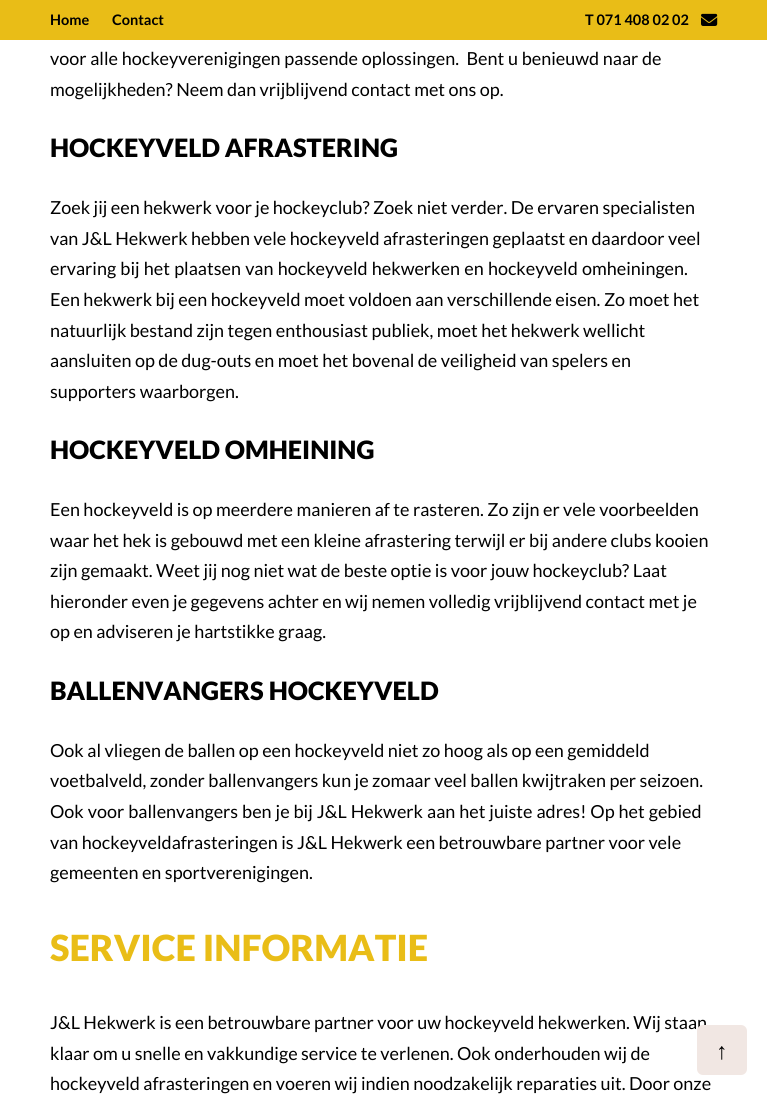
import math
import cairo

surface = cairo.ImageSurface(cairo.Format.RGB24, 767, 1095)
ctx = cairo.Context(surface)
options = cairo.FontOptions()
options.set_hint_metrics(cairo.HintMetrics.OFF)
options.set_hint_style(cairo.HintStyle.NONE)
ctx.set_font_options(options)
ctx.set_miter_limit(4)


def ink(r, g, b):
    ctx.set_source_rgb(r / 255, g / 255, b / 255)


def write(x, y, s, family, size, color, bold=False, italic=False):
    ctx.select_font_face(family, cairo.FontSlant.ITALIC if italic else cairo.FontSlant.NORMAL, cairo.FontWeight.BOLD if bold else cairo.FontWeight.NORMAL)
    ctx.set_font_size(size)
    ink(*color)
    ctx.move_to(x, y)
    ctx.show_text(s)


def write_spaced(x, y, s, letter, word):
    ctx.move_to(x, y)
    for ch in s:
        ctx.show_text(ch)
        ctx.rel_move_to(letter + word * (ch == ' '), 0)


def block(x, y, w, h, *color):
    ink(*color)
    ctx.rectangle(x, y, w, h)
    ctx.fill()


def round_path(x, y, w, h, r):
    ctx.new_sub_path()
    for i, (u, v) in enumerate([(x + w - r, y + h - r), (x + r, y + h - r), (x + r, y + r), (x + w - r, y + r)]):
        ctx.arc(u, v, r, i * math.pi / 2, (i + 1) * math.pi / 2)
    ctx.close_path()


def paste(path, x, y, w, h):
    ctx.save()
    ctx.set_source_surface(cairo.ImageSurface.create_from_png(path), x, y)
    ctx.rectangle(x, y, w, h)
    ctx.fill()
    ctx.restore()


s1 = dict(family="Lato", size=14.5, color=(0, 0, 0), bold=True)
s2 = dict(family="Lato", size=18, color=(0, 0, 0))
s3 = dict(family="Lato Black", size=25.25, color=(0, 0, 0))
s4 = dict(family="Lato Black", size=36, color=(233, 189, 23))
s5 = dict(family="Liberation Sans", size=23, color=(0, 0, 0))

ink(255, 255, 255)
ctx.paint()
block(0, 0, 767, 40, 233, 189, 23)
write(50, 25, "Home", **s1)
write(112, 25, "Contact", **s1)
write(585, 25, "T 071 408 02 02", **s1)
paste("pic1.png", 701, 13, 17, 13)
ctx.select_font_face("Lato")
ctx.set_font_size(18)
write_spaced(50, 65, "voor alle hockeyverenigingen passende oplossingen.  Bent u benieuwd naar de", 0, 0.25)
write(50, 96, "mogelijkheden? Neem dan vrijblijvend contact met ons op.", **s2)
write(50, 157, "HOCKEYVELD AFRASTERING", **s3)
write(50, 214, "Zoek jij een hekwerk voor je hockeyclub? Zoek niet verder. De ervaren specialisten", **s2)
write(50, 245, "van J&L Hekwerk hebben vele hockeyveld afrasteringen geplaatst en daardoor veel", **s2)
write_spaced(50, 275, "ervaring bij het plaatsen van hockeyveld hekwerken en hockeyveld omheiningen.", 0, 0.75)
write(50, 306, "Een hekwerk bij een hockeyveld moet voldoen aan verschillende eisen. Zo moet het", **s2)
write(50, 337, "natuurlijk bestand zijn tegen enthousiast publiek, moet het hekwerk wellicht", **s2)
write(50, 367, "aansluiten op de dug-outs en moet het bovenal de veiligheid van spelers en", **s2)
write(50, 398, "supporters waarborgen.", **s2)
write(50, 459, "HOCKEYVELD OMHEINING", **s3)
write(50, 516, "Een hockeyveld is op meerdere manieren af te rasteren. Zo zijn er vele voorbeelden", **s2)
write(50, 547, "waar het hek is gebouwd met een kleine afrastering terwijl er bij andere clubs kooien", **s2)
write(50, 577, "zijn gemaakt. Weet jij nog niet wat de beste optie is voor jouw hockeyclub? Laat", **s2)
write(50, 608, "hieronder even je gegevens achter en wij nemen volledig vrijblijvend contact met je", **s2)
write(50, 638, "op en adviseren je hartstikke graag.", **s2)
write(50, 700, "BALLENVANGERS HOCKEYVELD", **s3)
write(50, 757, "Ook al vliegen de ballen op een hockeyveld niet zo hoog als op een gemiddeld", **s2)
write(50, 787, "voetbalveld, zonder ballenvangers kun je zomaar veel ballen kwijtraken per seizoen.", **s2)
write_spaced(50, 818, "Ook voor ballenvangers ben je bij J&L Hekwerk aan het juiste adres! Op het gebied", 0, 0.5)
write(50, 849, "van hockeyveldafrasteringen is J&L Hekwerk een betrouwbare partner voor vele", **s2)
write(50, 879, "gemeenten en sportverenigingen.", **s2)
write(50, 961, "SERVICE INFORMATIE", **s4)
write(50, 1029, "J&L Hekwerk is een betrouwbare partner voor uw hockeyveld hekwerken. Wij staan", **s2)
write(50, 1060, "klaar om u snelle en vakkundige service te verlenen. Ook onderhouden wij de", **s2)
write(50, 1090, "hockeyveld afrasteringen en voeren wij indien noodzakelijk reparaties uit. Door onze", **s2)
ink(241, 231, 227)
round_path(697, 1025, 50, 50, 6)
ctx.fill()
write(716, 1059, "↑", **s5)
surface.write_to_png("screenshot.png")
